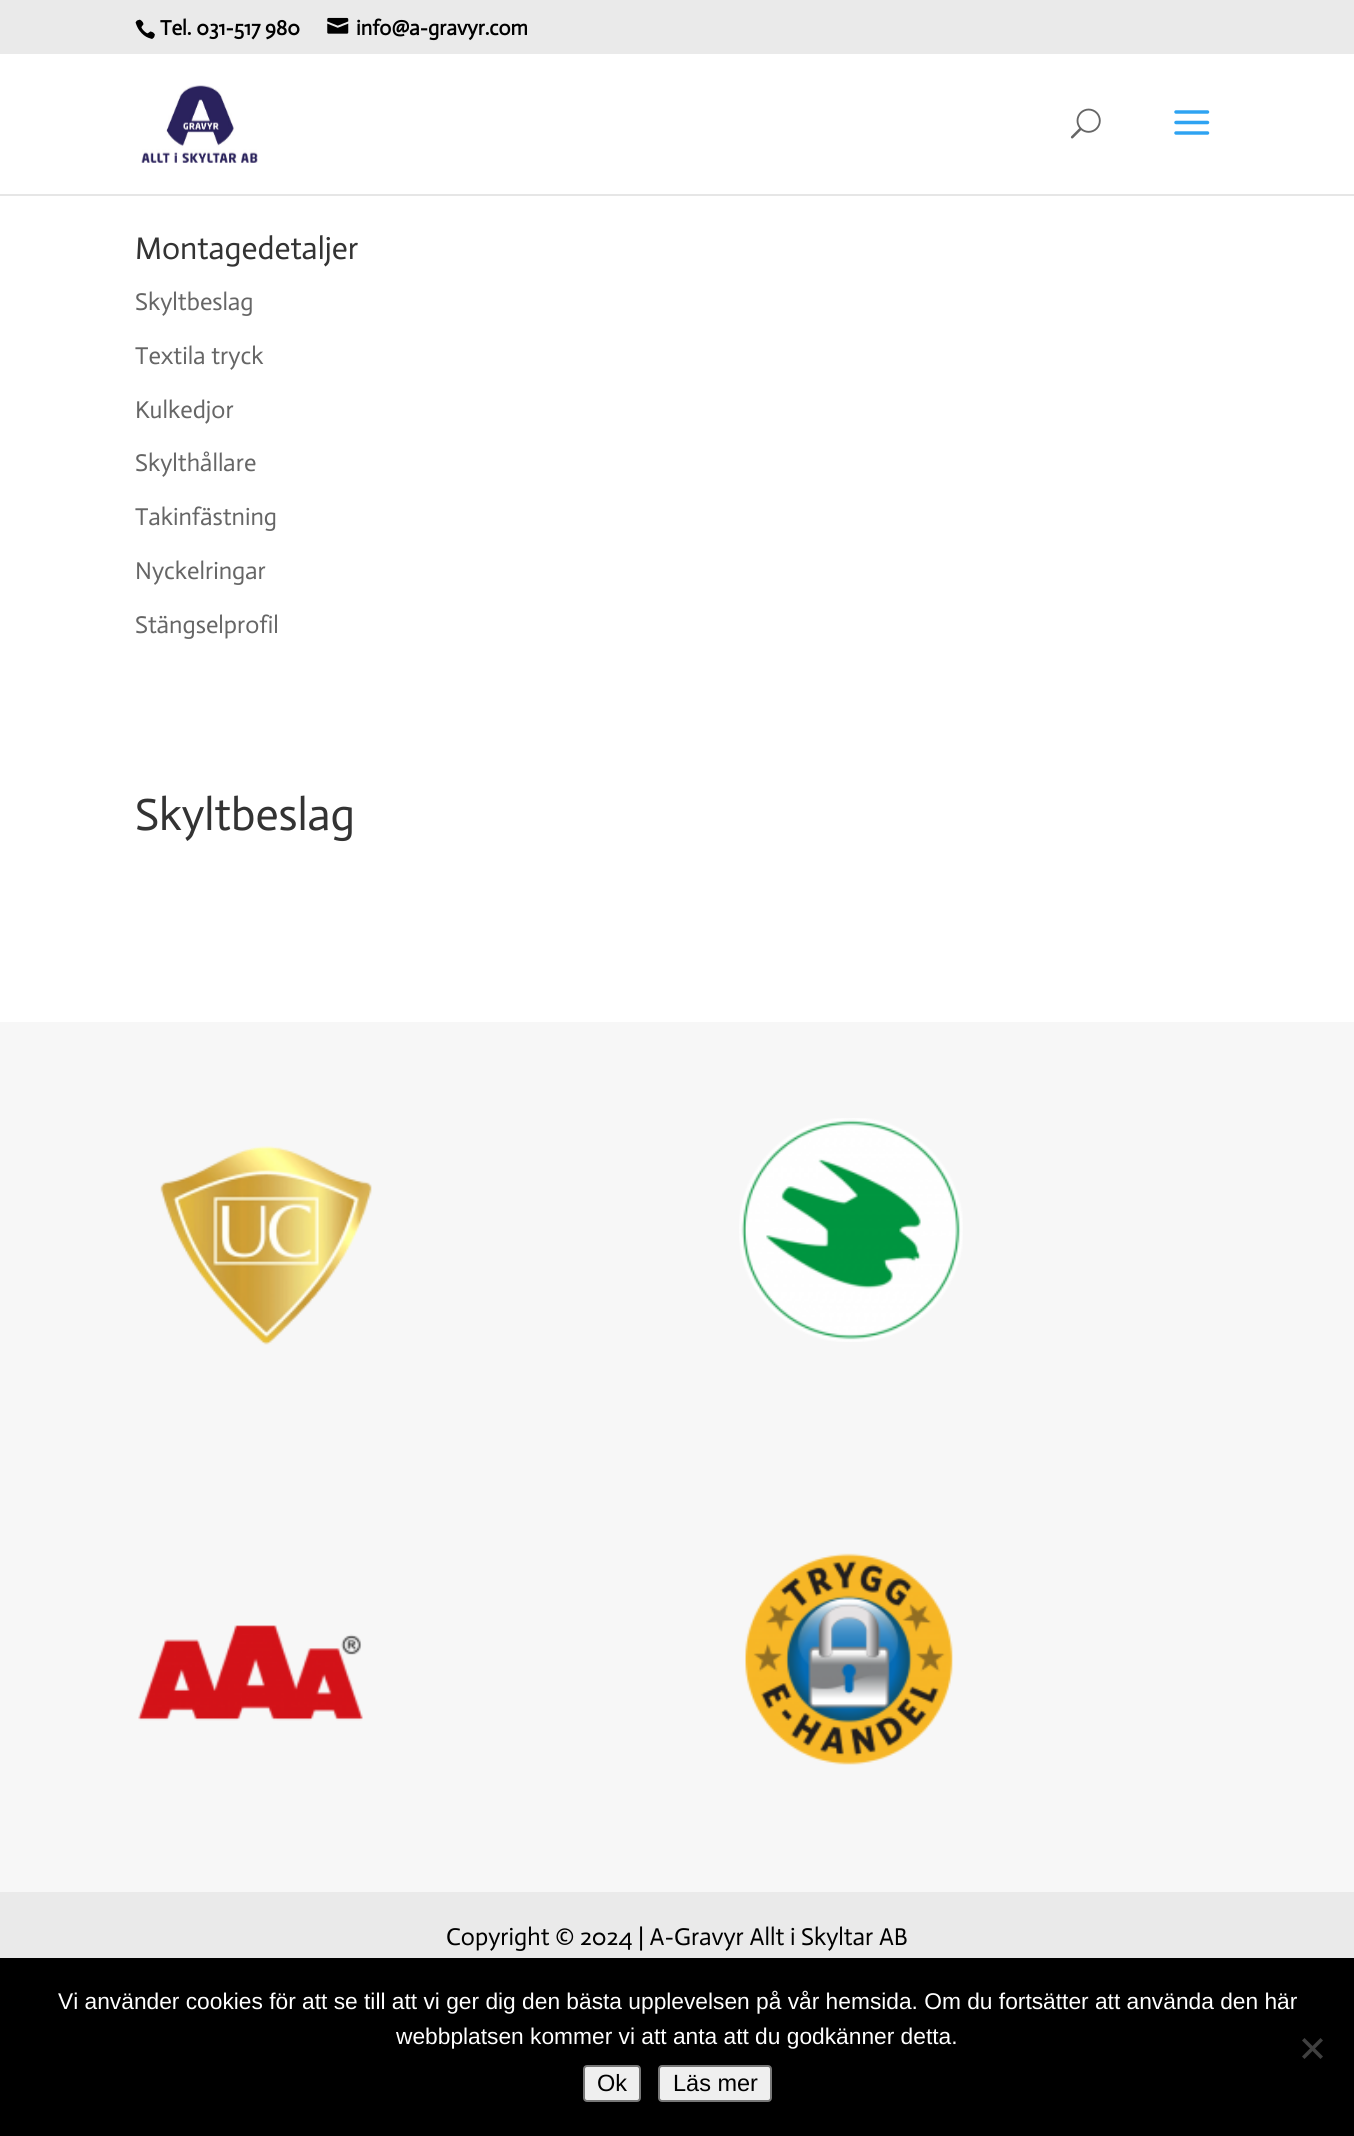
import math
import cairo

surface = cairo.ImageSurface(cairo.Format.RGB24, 1354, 2136)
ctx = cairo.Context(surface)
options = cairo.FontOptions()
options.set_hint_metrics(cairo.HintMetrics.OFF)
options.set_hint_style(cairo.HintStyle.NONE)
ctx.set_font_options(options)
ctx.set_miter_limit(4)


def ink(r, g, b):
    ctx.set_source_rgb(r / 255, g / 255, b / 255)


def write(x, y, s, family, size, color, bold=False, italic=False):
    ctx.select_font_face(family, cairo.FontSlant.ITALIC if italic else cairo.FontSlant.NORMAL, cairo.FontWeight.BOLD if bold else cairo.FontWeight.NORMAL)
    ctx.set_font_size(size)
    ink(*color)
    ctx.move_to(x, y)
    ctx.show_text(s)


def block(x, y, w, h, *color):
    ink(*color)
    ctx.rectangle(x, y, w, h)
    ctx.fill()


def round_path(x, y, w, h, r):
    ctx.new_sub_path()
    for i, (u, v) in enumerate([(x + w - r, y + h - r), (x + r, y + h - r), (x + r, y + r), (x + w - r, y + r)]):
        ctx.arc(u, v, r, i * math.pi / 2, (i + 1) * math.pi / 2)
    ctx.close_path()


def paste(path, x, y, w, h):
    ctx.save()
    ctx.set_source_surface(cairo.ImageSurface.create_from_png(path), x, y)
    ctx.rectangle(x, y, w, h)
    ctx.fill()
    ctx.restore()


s1 = dict(family="Actor", size=21, color=(0, 0, 0), bold=True)
s2 = dict(family="Actor", size=31.5, color=(51, 51, 51))
s3 = dict(family="Actor", size=24.5, color=(102, 102, 102))
s4 = dict(family="Actor", size=45.5, color=(51, 51, 51))
s5 = dict(family="Actor", size=24.5, color=(0, 0, 0))
s6 = dict(family="Liberation Sans", size=22.75, color=(255, 255, 255))
s7 = dict(family="Liberation Sans", size=23.5, color=(0, 0, 0))

ink(255, 255, 255)
ctx.paint()
block(0, 0, 1354, 54, 234, 234, 234)
paste("pic1.png", 135, 19, 20, 20)
write(160, 35, "Tel. 031-517 980", **s1)
paste("pic2.png", 327, 17, 22, 17)
write(356, 35, "info@a-gravyr.com", **s1)
ink(230, 230, 230)
ctx.new_path()
ctx.move_to(0, 194)
ctx.line_to(0, 196)
ctx.line_to(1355, 196)
ctx.line_to(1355, 56)
ctx.line_to(1354, 56)
ctx.line_to(1354, 194)
ctx.close_path()
ctx.fill()
paste("pic3.png", 141, 85, 117, 78)
paste("pic4.png", 1070, 108, 31, 31)
paste("pic5.png", 1174, 110, 36, 25)
write(135, 259, "Montagedetaljer", **s2)
write(135, 310, "Skyltbeslag", **s3)
write(135, 364, "Textila tryck", **s3)
write(135, 418, "Kulkedjor", **s3)
write(135, 471, "Skylthållare", **s3)
write(135, 525, "Takinfästning", **s3)
write(135, 579, "Nyckelringar", **s3)
write(135, 633, "Stängselprofil", **s3)
write(135, 830, "Skyltbeslag", **s4)
block(0, 1022, 1354, 870, 247, 247, 247)
paste("pic6.png", 160, 1146, 212, 199)
paste("pic7.png", 739, 1118, 224, 224)
paste("pic8.png", 138, 1625, 225, 96)
paste("pic9.png", 745, 1553, 208, 212)
block(0, 1892, 1354, 66, 234, 234, 234)
write(446, 1945, "Copyright © 2024 | A-Gravyr Allt i Skyltar AB", **s5)
block(0, 1958, 1354, 178, 0, 0, 0)
write(58, 2009, "Vi använder cookies för att se till att vi ger dig den bästa upplevelsen på vår hemsida. Om du fortsätter att använda den här", **s6)
write(396, 2044, "webbplatsen kommer vi att anta att du godkänner detta.", **s6)
ink(64, 64, 64)
ctx.new_path()
ctx.move_to(1320.5, 2038)
ctx.line_to(1323, 2040.5)
ctx.line_to(1304.5, 2059)
ctx.line_to(1302, 2056.5)
ctx.close_path()
ctx.fill()
ctx.new_path()
ctx.move_to(1302, 2040.5)
ctx.line_to(1304.5, 2038)
ctx.line_to(1323, 2056.5)
ctx.line_to(1320.5, 2059)
ctx.close_path()
ctx.fill()
ink(239, 239, 239)
round_path(584, 2066, 56, 35, 3)
ctx.fill_preserve()
ink(118, 118, 118)
ctx.stroke()
write(597, 2091, "Ok", **s7)
ink(239, 239, 239)
round_path(659, 2066, 112, 35, 3)
ctx.fill_preserve()
ink(118, 118, 118)
ctx.stroke()
write(673, 2091, "Läs mer", **s7)
surface.write_to_png("screenshot.png")
